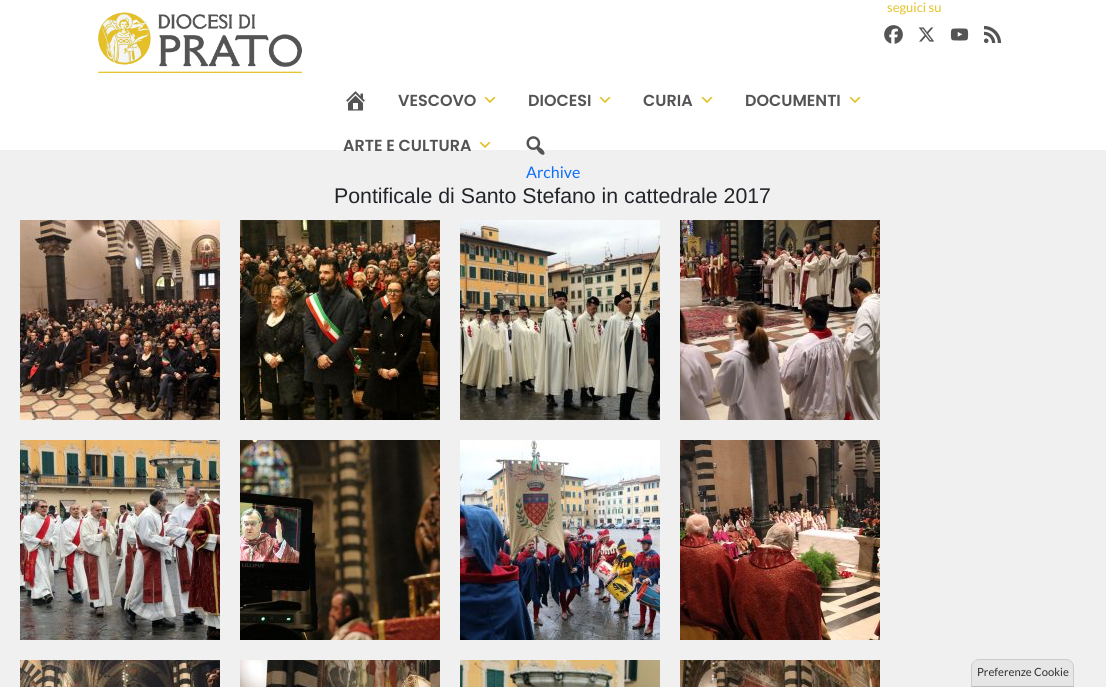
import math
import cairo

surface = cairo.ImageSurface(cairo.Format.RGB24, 1106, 687)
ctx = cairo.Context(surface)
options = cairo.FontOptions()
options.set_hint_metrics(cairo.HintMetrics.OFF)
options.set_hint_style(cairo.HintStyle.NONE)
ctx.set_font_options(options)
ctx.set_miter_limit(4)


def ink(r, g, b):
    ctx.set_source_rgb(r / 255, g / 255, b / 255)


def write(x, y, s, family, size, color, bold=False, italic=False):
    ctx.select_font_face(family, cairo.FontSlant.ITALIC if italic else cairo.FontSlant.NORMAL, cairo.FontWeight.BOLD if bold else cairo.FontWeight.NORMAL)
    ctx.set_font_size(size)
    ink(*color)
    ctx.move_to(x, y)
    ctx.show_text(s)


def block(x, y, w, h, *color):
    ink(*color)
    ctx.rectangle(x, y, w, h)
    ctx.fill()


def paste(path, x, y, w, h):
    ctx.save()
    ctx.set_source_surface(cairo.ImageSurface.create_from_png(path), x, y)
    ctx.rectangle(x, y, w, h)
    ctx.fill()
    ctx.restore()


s1 = dict(family="Lato", size=13, color=(228, 193, 40))
s2 = dict(family="Poppins SemiBold", size=16, color=(84, 84, 84))
s3 = dict(family="Lato", size=16, color=(13, 110, 253))
s4 = dict(family="Liberation Sans", size=21.3, color=(33, 37, 41))
s5 = dict(family="Lato", size=11.25, color=(46, 46, 46))

ink(255, 255, 255)
ctx.paint()
paste("pic1.png", 98, 7, 204, 66)
write(887, 12, "seguici su", **s1)
paste("pic2.png", 884, 25, 19, 19)
paste("pic3.png", 918, 27, 17, 15)
paste("pic4.png", 950, 28, 19, 13)
paste("pic5.png", 983, 25, 19, 19)
paste("pic6.png", 346, 91, 19, 20)
write(398, 106, "VESCOVO", **s2)
paste("pic7.png", 484, 96, 12, 7)
write(528, 106, "DIOCESI", **s2)
paste("pic7.png", 599, 96, 12, 7)
write(643, 106, "CURIA", **s2)
paste("pic7.png", 701, 96, 12, 7)
write(745, 106, "DOCUMENTI", **s2)
paste("pic7.png", 849, 96, 12, 7)
block(0, 150, 1106, 537, 240, 240, 240)
write(343, 151, "ARTE E CULTURA", **s2)
paste("pic7.png", 479, 141, 12, 7)
paste("pic8.png", 526, 136, 19, 19)
write(526, 178, "Archive", **s3)
write(334, 203, "Pontificale di Santo Stefano in cattedrale 2017", **s4)
paste("pic9.png", 20, 220, 200, 200)
paste("pic10.png", 240, 220, 200, 200)
paste("pic11.png", 460, 220, 200, 200)
paste("pic12.png", 680, 220, 200, 200)
paste("pic13.png", 20, 440, 200, 200)
paste("pic14.png", 240, 440, 200, 200)
paste("pic15.png", 460, 440, 200, 200)
paste("pic16.png", 680, 440, 200, 200)
paste("pic17.png", 20, 660, 200, 27)
paste("pic18.png", 240, 660, 200, 27)
paste("pic19.png", 460, 660, 200, 27)
paste("pic20.png", 680, 660, 200, 27)
ink(230, 230, 230)
ctx.new_path()
ctx.move_to(979, 659)
ctx.line_to(1066, 659)
ctx.curve_to(1070.5, 659, 1074, 662.5, 1074, 667)
ctx.line_to(1074, 687)
ctx.line_to(971, 687)
ctx.line_to(971, 667)
ctx.curve_to(971, 662.5, 974.5, 659, 979, 659)
ctx.close_path()
ctx.fill()
ink(204, 204, 204)
ctx.new_path()
ctx.move_to(979, 659)
ctx.curve_to(977, 659, 975, 660, 974, 662)
ctx.curve_to(975, 661, 977, 660, 979, 660)
ctx.line_to(1066, 660)
ctx.curve_to(1068, 660, 1070, 661, 1071, 662)
ctx.line_to(1072, 662)
ctx.curve_to(1070, 660, 1068, 659, 1066, 659)
ctx.close_path()
ctx.fill()
ctx.new_path()
ctx.move_to(1074, 687)
ctx.line_to(1074, 667)
ctx.curve_to(1074, 665, 1073, 663, 1071.5, 661.5)
ctx.line_to(1071, 662)
ctx.curve_to(1072, 663, 1073, 665, 1073, 667)
ctx.line_to(1073, 686)
ctx.close_path()
ctx.fill()
ink(187, 187, 187)
ctx.new_path()
ctx.move_to(1074, 687)
ctx.line_to(1073, 686)
ctx.line_to(972, 686)
ctx.line_to(971, 687)
ctx.close_path()
ctx.fill()
ink(204, 204, 204)
ctx.new_path()
ctx.move_to(971, 687)
ctx.line_to(972, 686)
ctx.line_to(972, 667)
ctx.curve_to(972, 665, 973, 663, 974, 662)
ctx.line_to(973.5, 661.5)
ctx.curve_to(972, 663, 971, 665, 971, 667)
ctx.close_path()
ctx.fill()
write(977, 676, "Preferenze Cookie", **s5)
surface.write_to_png("screenshot.png")
